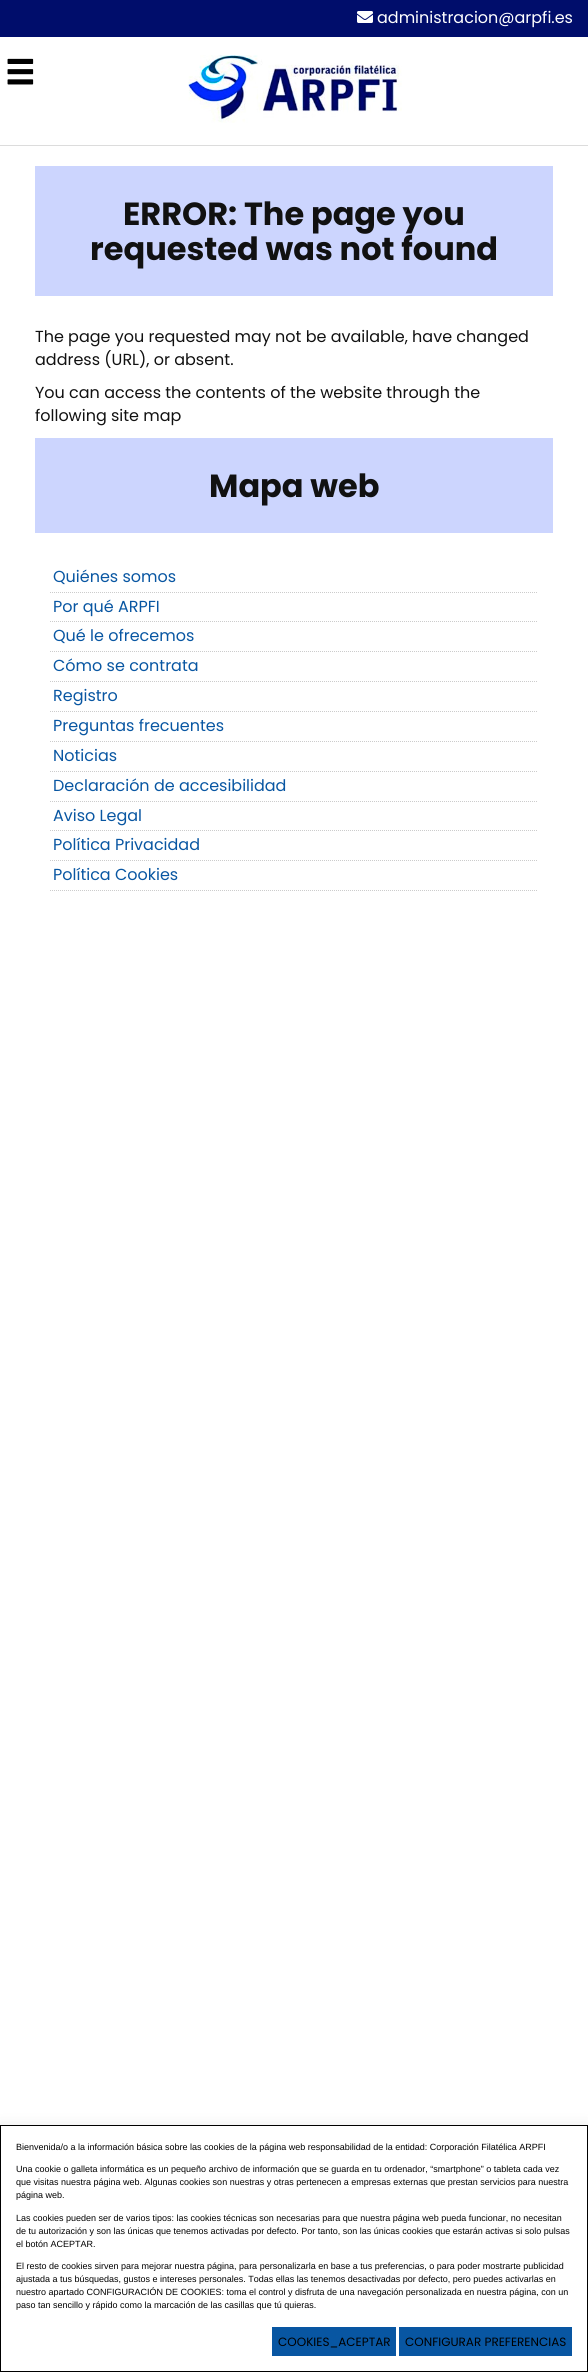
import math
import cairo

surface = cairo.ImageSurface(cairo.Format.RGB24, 588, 2372)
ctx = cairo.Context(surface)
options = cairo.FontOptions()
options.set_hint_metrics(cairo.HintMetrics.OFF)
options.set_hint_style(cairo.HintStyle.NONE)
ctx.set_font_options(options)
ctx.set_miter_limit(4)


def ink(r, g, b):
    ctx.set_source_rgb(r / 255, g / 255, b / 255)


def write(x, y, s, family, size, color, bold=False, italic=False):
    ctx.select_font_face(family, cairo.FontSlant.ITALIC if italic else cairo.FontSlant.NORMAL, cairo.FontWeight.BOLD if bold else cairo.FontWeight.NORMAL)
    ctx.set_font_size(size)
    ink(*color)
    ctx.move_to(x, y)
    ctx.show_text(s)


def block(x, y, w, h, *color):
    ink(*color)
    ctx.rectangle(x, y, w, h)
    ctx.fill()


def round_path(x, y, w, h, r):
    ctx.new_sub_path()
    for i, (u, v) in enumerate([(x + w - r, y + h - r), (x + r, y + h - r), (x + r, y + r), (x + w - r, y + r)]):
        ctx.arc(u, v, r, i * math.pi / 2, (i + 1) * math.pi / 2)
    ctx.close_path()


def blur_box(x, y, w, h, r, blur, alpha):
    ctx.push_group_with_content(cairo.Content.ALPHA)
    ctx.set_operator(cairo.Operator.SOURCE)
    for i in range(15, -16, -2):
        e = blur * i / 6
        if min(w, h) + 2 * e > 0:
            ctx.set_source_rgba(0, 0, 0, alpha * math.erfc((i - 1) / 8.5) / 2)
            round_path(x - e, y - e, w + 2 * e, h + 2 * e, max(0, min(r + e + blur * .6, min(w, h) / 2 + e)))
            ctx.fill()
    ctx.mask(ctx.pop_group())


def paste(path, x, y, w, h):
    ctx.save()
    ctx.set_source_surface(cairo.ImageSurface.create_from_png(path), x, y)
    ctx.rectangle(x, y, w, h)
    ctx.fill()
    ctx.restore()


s1 = dict(family="Poppins", size=16, color=(255, 255, 255))
s2 = dict(family="Poppins", size=32, color=(17, 17, 17), bold=True)
s3 = dict(family="Poppins", size=16, color=(17, 17, 17))
s4 = dict(family="Poppins", size=16, color=(8, 86, 162))
s5 = dict(family="Liberation Sans", size=9, color=(0, 0, 0))
s6 = dict(family="Poppins", size=12, color=(0, 0, 0))

ink(255, 255, 255)
ctx.paint()
block(0, 0, 588, 37, 0, 13, 107)
paste("pic1.png", 357, 11, 16, 12)
write(377, 23, "administracion@arpfi.es", **s1)
block(0, 145, 588, 1, 220, 220, 220)
paste("pic2.png", 7, 58, 27, 27)
paste("pic3.png", 188, 55, 214, 68)
block(35, 166, 518, 130, 204, 213, 254)
write(123, 225, "ERROR: The page you", **s2)
write(90, 260, "requested was not found", **s2)
write(35, 342, "The page you requested may not be available, have changed", **s3)
write(35, 365, "address (URL), or absent.", **s3)
write(35, 398, "You can access the contents of the website through the", **s3)
write(35, 421, "following site map", **s3)
block(35, 438, 518, 95, 204, 213, 254)
write(209, 497, "Mapa web", **s2)
ctx.new_path()
ctx.move_to(50, 592.5)
ctx.line_to(538, 592.5)
ink(204, 204, 204)
ctx.set_line_width(1)
ctx.set_dash([1, 1])
ctx.stroke()
write(53, 582, "Quiénes somos", **s4)
ctx.new_path()
ctx.move_to(50, 621.5)
ctx.line_to(538, 621.5)
ink(204, 204, 204)
ctx.stroke()
write(53, 612, "Por qué ARPFI", **s4)
ctx.new_path()
ctx.move_to(50, 651.5)
ctx.line_to(538, 651.5)
ink(204, 204, 204)
ctx.stroke()
write(53, 641, "Qué le ofrecemos", **s4)
ctx.new_path()
ctx.move_to(50, 681.5)
ctx.line_to(538, 681.5)
ink(204, 204, 204)
ctx.stroke()
write(53, 671, "Cómo se contrata", **s4)
ctx.new_path()
ctx.move_to(50, 711.5)
ctx.line_to(538, 711.5)
ink(204, 204, 204)
ctx.stroke()
write(53, 701, "Registro", **s4)
ctx.new_path()
ctx.move_to(50, 741.5)
ctx.line_to(538, 741.5)
ink(204, 204, 204)
ctx.stroke()
write(53, 731, "Preguntas frecuentes", **s4)
ctx.new_path()
ctx.move_to(50, 771.5)
ctx.line_to(538, 771.5)
ink(204, 204, 204)
ctx.stroke()
write(53, 761, "Noticias", **s4)
ctx.new_path()
ctx.move_to(50, 801.5)
ctx.line_to(538, 801.5)
ink(204, 204, 204)
ctx.stroke()
write(53, 791, "Declaración de accesibilidad", **s4)
ctx.new_path()
ctx.move_to(50, 830.5)
ctx.line_to(538, 830.5)
ink(204, 204, 204)
ctx.stroke()
write(53, 821, "Aviso Legal", **s4)
ctx.new_path()
ctx.move_to(50, 860.5)
ctx.line_to(538, 860.5)
ink(204, 204, 204)
ctx.stroke()
write(53, 850, "Política Privacidad", **s4)
ctx.new_path()
ctx.move_to(50, 890.5)
ctx.line_to(538, 890.5)
ink(204, 204, 204)
ctx.stroke()
write(53, 880, "Política Cookies", **s4)
ink(130, 132, 134)
blur_box(0, 2125, 588, 247, 0, 7.5, 0.15)
ink(255, 255, 255)
ctx.rectangle(0.5, 2125.5, 587, 246)
ctx.fill_preserve()
ink(0, 0, 0)
ctx.set_dash([])
ctx.stroke()
write(16, 2150, "Bienvenida/o a la información básica sobre las cookies de la página web responsabilidad de la entidad: Corporación Filatélica ARPFI", **s5)
write(16, 2172, "Una cookie o galleta informática es un pequeño archivo de información que se guarda en tu ordenador, “smartphone” o tableta cada vez", **s5)
write(16, 2185, "que visitas nuestra página web. Algunas cookies son nuestras y otras pertenecen a empresas externas que prestan servicios para nuestra", **s5)
write(16, 2198, "página web.", **s5)
write(16, 2221, "Las cookies pueden ser de varios tipos: las cookies técnicas son necesarias para que nuestra página web pueda funcionar, no necesitan", **s5)
write(16, 2234, "de tu autorización y son las únicas que tenemos activadas por defecto. Por tanto, son las únicas cookies que estarán activas si solo pulsas", **s5)
write(16, 2247, "el botón ACEPTAR.", **s5)
write(16, 2269, "El resto de cookies sirven para mejorar nuestra página, para personalizarla en base a tus preferencias, o para poder mostrarte publicidad", **s5)
write(16, 2282, "ajustada a tus búsquedas, gustos e intereses personales. Todas ellas las tenemos desactivadas por defecto, pero puedes activarlas en", **s5)
write(16, 2295, "nuestro apartado CONFIGURACIÓN DE COOKIES: toma el control y disfruta de una navegación personalizada en nuestra página, con un", **s5)
write(16, 2308, "paso tan sencillo y rápido como la marcación de las casillas que tú quieras.", **s5)
block(272, 2327, 124, 29, 8, 86, 162)
write(278, 2346, "COOKIES_ACEPTAR", **s6)
block(399, 2327, 173, 29, 8, 86, 162)
write(405, 2346, "CONFIGURAR PREFERENCIAS", **s6)
surface.write_to_png("screenshot.png")
